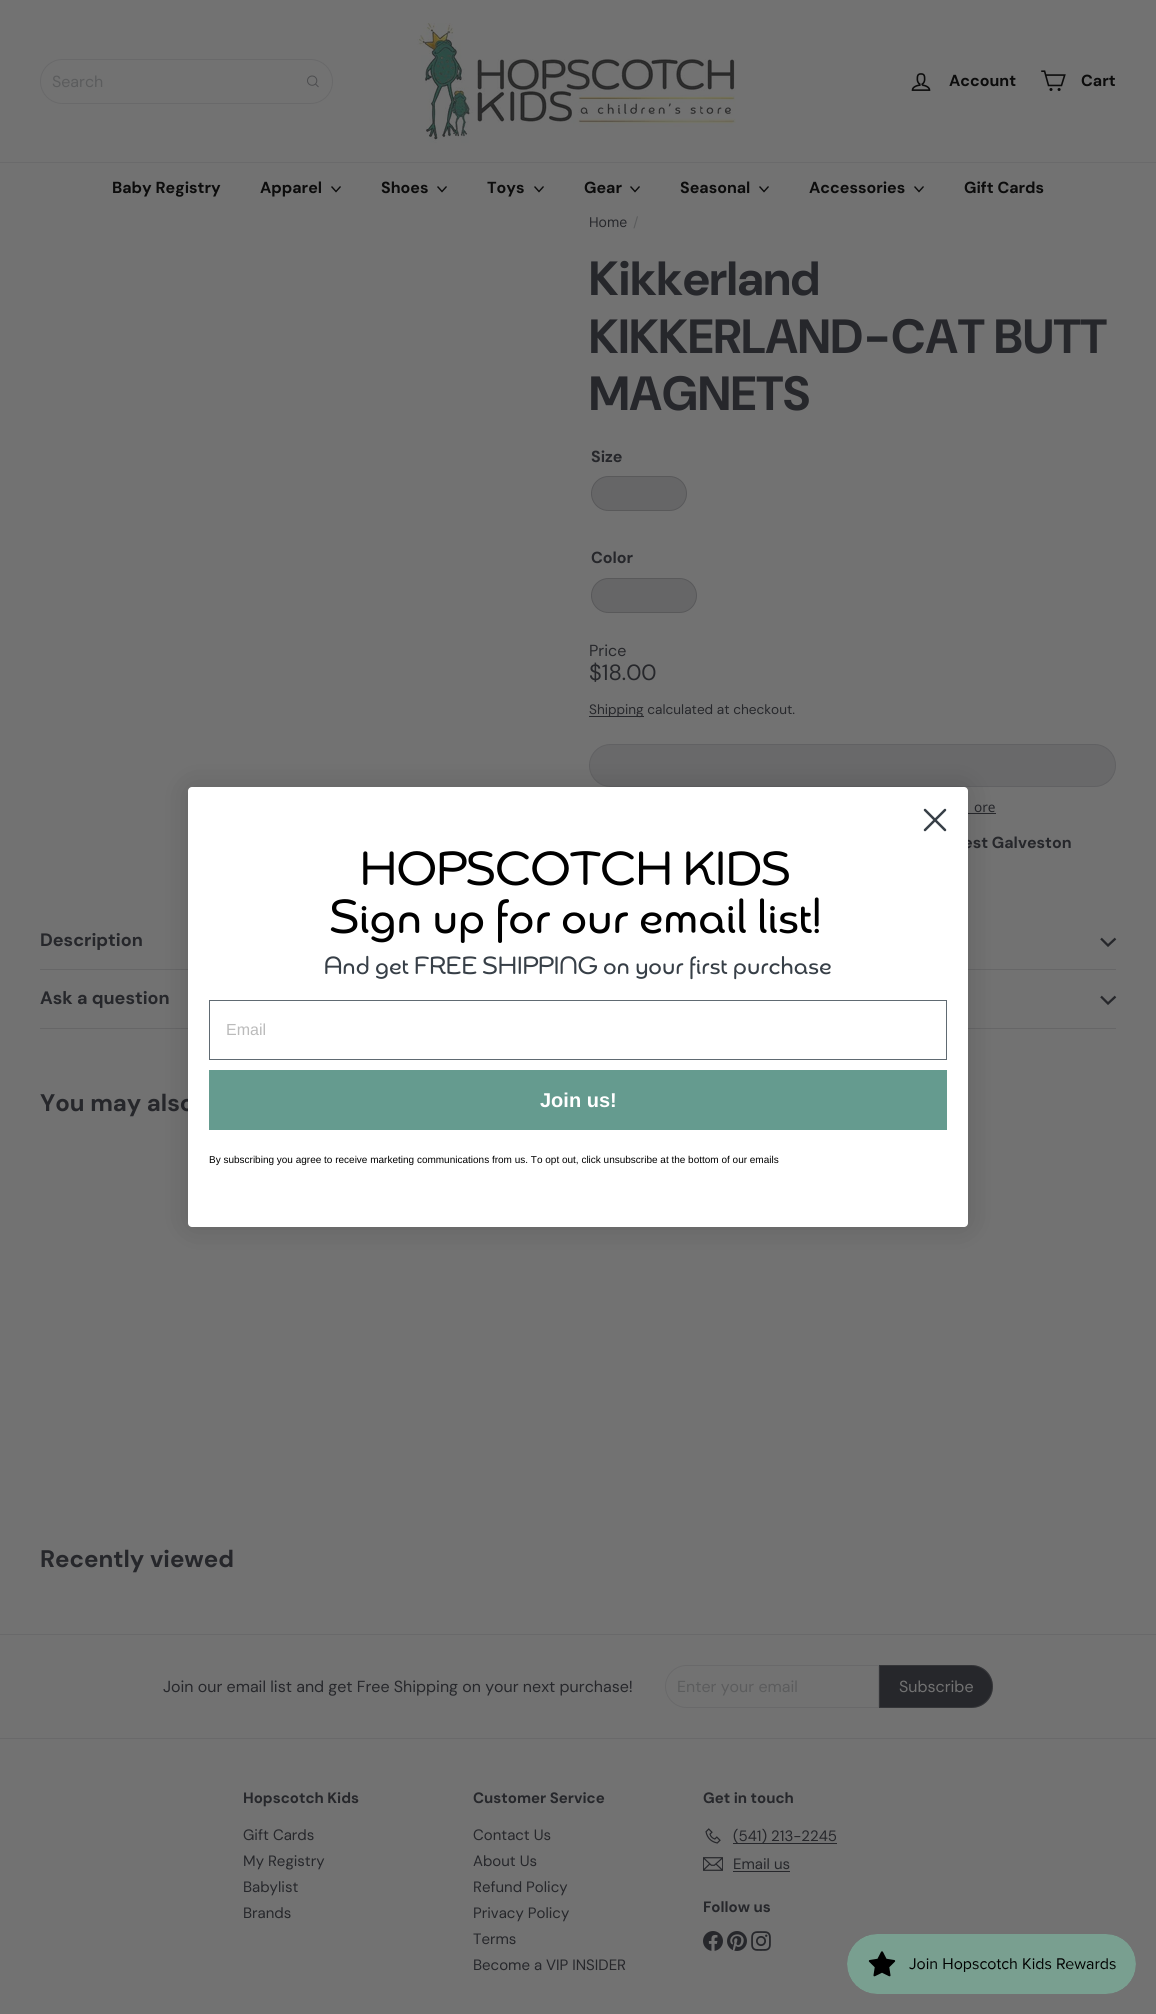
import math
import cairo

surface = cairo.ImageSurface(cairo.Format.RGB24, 1156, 2014)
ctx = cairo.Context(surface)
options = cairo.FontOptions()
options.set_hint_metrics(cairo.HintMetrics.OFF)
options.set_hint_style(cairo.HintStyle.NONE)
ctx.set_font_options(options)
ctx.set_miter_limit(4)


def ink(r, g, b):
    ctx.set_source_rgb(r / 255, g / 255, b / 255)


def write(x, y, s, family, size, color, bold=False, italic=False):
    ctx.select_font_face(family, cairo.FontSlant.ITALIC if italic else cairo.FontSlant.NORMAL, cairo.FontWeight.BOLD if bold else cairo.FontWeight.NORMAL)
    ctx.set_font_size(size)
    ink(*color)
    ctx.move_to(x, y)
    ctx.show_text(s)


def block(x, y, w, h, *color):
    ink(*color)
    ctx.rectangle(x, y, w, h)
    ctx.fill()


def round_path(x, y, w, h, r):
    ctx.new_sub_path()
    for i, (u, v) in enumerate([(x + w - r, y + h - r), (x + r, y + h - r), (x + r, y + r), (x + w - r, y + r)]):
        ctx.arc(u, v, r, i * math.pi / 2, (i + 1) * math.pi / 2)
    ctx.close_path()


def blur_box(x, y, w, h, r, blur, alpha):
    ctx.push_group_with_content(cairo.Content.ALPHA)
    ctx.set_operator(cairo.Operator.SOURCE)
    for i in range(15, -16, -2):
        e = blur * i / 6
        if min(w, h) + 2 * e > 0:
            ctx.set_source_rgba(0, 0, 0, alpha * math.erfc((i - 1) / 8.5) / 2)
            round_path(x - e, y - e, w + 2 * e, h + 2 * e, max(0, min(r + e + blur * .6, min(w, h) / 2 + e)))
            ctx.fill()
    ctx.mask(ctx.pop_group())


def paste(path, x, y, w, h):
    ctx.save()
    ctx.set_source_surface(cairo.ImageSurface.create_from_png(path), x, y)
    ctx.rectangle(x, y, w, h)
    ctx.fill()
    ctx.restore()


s1 = dict(family="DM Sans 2", size=16, color=(91, 92, 93))
s2 = dict(family="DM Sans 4", size=16, color=(12, 12, 12), bold=True)
s3 = dict(family="DM Sans", size=14, color=(38, 39, 43))
s4 = dict(family="DM Sans", size=14, color=(91, 92, 93))
s5 = dict(family="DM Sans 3", size=48, color=(38, 39, 43), bold=True)
s6 = dict(family="DM Sans 4", size=16, color=(38, 39, 43), bold=True)
s7 = dict(family="DM Sans 2", size=16, color=(38, 39, 43))
s8 = dict(family="DM Sans 3", size=22, color=(38, 39, 43))
s9 = dict(family="DM Sans 4", size=13.6, color=(38, 39, 43))
s10 = dict(family="Noto Sans", size=13.6, color=(38, 39, 43))
s11 = dict(family="DM Sans", size=18, color=(38, 39, 43), bold=True)
s12 = dict(family="DM Sans 2", size=24, color=(38, 39, 43), bold=True)
s13 = dict(family="DM Sans 2", size=16, color=(114, 114, 114))
s14 = dict(family="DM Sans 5", size=15, color=(38, 39, 43), bold=True)
s15 = dict(family="DM Sans 5", size=15, color=(38, 39, 43))
s16 = dict(family="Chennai", size=48, color=(0, 0, 0))
s17 = dict(family="Chennai", size=25, color=(55, 63, 71))
s18 = dict(family="Liberation Sans", size=16, color=(187, 187, 187))
s19 = dict(family="Liberation Sans", size=20, color=(255, 255, 255), bold=True)
s20 = dict(family="Liberation Sans", size=10, color=(0, 0, 0))

ink(114, 114, 114)
ctx.paint()
round_path(40.5, 59.5, 292, 44, 22)
ink(105, 105, 106)
ctx.set_line_width(1)
ctx.stroke()
write(52, 87, "Search", **s1)
paste("pic1.png", 307, 75, 12, 13)
paste("pic2.png", 417, 23, 319, 120)
paste("pic3.png", 911, 73, 20, 18)
write(949, 86, "Account", **s2)
paste("pic4.png", 1041, 70, 25, 21)
write(1081, 86, "Cart", **s2)
block(0, 162, 1156, 1, 106, 106, 107)
write(112, 193, "Baby Registry", **s2)
write(260, 193, "Apparel", **s2)
ctx.new_path()
ctx.move_to(331.5, 186.5)
ctx.line_to(336, 191.5)
ctx.line_to(340.5, 186.5)
ctx.set_line_width(1.4)
ctx.stroke()
write(381, 193, "Shoes", **s2)
ctx.new_path()
ctx.move_to(437.5, 186.5)
ctx.line_to(442, 191.5)
ctx.line_to(446.5, 186.5)
ctx.stroke()
write(487, 193, "Toys", **s2)
ctx.new_path()
ctx.move_to(534.5, 186.5)
ctx.line_to(539, 191.5)
ctx.line_to(543.5, 186.5)
ctx.stroke()
write(584, 193, "Gear", **s2)
ctx.new_path()
ctx.move_to(630.5, 186.5)
ctx.line_to(635, 191.5)
ctx.line_to(639.5, 186.5)
ctx.stroke()
write(680, 193, "Seasonal", **s2)
ctx.new_path()
ctx.move_to(759.5, 186.5)
ctx.line_to(764, 191.5)
ctx.line_to(768.5, 186.5)
ctx.stroke()
write(809, 193, "Accessories", **s2)
ctx.new_path()
ctx.move_to(914.5, 186.5)
ctx.line_to(919, 191.5)
ctx.line_to(923.5, 186.5)
ctx.stroke()
write(964, 193, "Gift Cards", **s2)
write(589, 227, "Home", **s3)
write(633, 227, "/", **s4)
write(589, 295, "Kikkerland", **s5)
write(589, 353, "KIKKERLAND-CAT BUTT", **s5)
write(589, 410, "MAGNETS", **s5)
write(591, 462, "Size", **s6)
ink(102, 102, 103)
round_path(591, 476, 96, 35, 17.5)
ctx.fill()
round_path(591.5, 476.5, 95, 34, 17)
ctx.set_source_rgba(0.149, 0.153, 0.169, 0.2)
ctx.set_line_width(1)
ctx.stroke()
write(591, 563, "Color", **s6)
ink(102, 102, 103)
round_path(591, 578, 106, 35, 17.5)
ctx.fill()
round_path(591.5, 578.5, 105, 34, 17)
ctx.set_source_rgba(0.149, 0.153, 0.169, 0.2)
ctx.stroke()
write(589, 656, "Price", **s7)
write(589, 680, "$18.00", **s8)
block(589, 716, 55, 1, 38, 39, 43)
write(589, 714, "Shipping calculated at checkout.", **s9)
ink(105, 105, 106)
round_path(589, 744, 527, 43, 21.5)
ctx.fill()
round_path(589.5, 744.5, 526, 42, 21)
ctx.set_source_rgba(0.149, 0.153, 0.169, 0.12)
ctx.stroke()
write(974, 812, "ore", **s10)
block(968, 813, 28, 1, 38, 39, 43)
write(963, 848, "est Galveston", **s6)
block(40, 969, 1076, 1, 102, 102, 103)
write(40, 946, "Description", **s11)
ctx.new_path()
ctx.move_to(1101, 938.5)
ctx.line_to(1108, 945.5)
ctx.line_to(1115.5, 938.5)
ctx.set_line_width(2.3)
ctx.stroke()
block(40, 1028, 1076, 1, 102, 102, 103)
write(40, 1004, "Ask a question", **s11)
ctx.new_path()
ctx.move_to(1101, 996.5)
ctx.line_to(1108, 1003.5)
ctx.line_to(1115.5, 996.5)
ctx.stroke()
write(40, 1111, "You may also", **s12)
write(40, 1567, "Recently viewed", **s12)
block(0, 1634, 1156, 1, 105, 105, 106)
write(163, 1692, "Join our email list and get Free Shipping on your next purchase!", **s7)
ctx.new_path()
ctx.move_to(686.5, 1665.5)
ctx.line_to(878.5, 1665.5)
ctx.line_to(878.5, 1707.5)
ctx.line_to(686.5, 1707.5)
ctx.curve_to(675, 1707.5, 665.5, 1698, 665.5, 1686.5)
ctx.curve_to(665.5, 1675, 675, 1665.5, 686.5, 1665.5)
ctx.close_path()
ink(105, 105, 106)
ctx.set_line_width(1)
ctx.stroke()
write(677, 1692, "Enter your email", **s1)
ink(38, 39, 43)
ctx.new_path()
ctx.move_to(879, 1665)
ctx.line_to(971.5, 1665)
ctx.curve_to(983.5, 1665, 993, 1674.5, 993, 1686.5)
ctx.curve_to(993, 1698.5, 983.5, 1708, 971.5, 1708)
ctx.line_to(879, 1708)
ctx.close_path()
ctx.fill()
ctx.new_path()
ctx.move_to(879.5, 1665.5)
ctx.line_to(971.5, 1665.5)
ctx.curve_to(983, 1665.5, 992.5, 1675, 992.5, 1686.5)
ctx.curve_to(992.5, 1698, 983, 1707.5, 971.5, 1707.5)
ctx.line_to(879.5, 1707.5)
ctx.close_path()
ctx.set_source_rgba(0.447, 0.447, 0.447, 0.2)
ctx.stroke()
write(899, 1692, "Subscribe", **s13)
block(0, 1738, 1156, 1, 105, 105, 106)
write(243, 1803, "Hopscotch Kids", **s14)
write(243, 1840, "Gift Cards", **s15)
write(243, 1866, "My Registry", **s15)
write(243, 1892, "Babylist", **s15)
write(243, 1918, "Brands", **s15)
write(473, 1803, "Customer Service", **s14)
write(473, 1840, "Contact Us", **s15)
write(473, 1866, "About Us", **s15)
write(473, 1892, "Refund Policy", **s15)
write(473, 1918, "Privacy Policy", **s15)
write(473, 1944, "Terms", **s15)
write(473, 1970, "Become a VIP INSIDER", **s15)
write(703, 1803, "Get in touch", **s14)
paste("pic5.png", 705, 1828, 16, 16)
block(733, 1843, 104, 1, 38, 39, 43)
write(733, 1841, "(541) 213-2245", **s15)
paste("pic6.png", 703, 1857, 20, 14)
write(733, 1869, "Email us", **s15)
block(733, 1871, 57, 1, 38, 39, 43)
write(703, 1912, "Follow us", **s14)
paste("pic7.png", 703, 1931, 20, 20)
paste("pic8.png", 727, 1931, 20, 20)
paste("pic9.png", 751, 1931, 20, 20)
ink(0, 0, 0)
blur_box(188, 787, 780, 440, 4, 15, 0.15)
ink(255, 255, 255)
round_path(188, 787, 780, 440, 4)
ctx.fill()
ctx.new_path()
ctx.move_to(925, 810)
ctx.line_to(945, 830)
ctx.move_to(925, 830)
ctx.line_to(945, 810)
ctx.close_path()
ink(55, 63, 71)
ctx.set_line_width(2.5)
ctx.set_line_cap(cairo.LineCap.ROUND)
ctx.set_line_join(cairo.LineJoin.ROUND)
ctx.stroke()
write(360, 885, "HOPSCOTCH KIDS", **s16)
write(330, 933, "Sign up for our email list!", **s16)
write(324, 974, "And get FREE SHIPPING on your first purchase", **s17)
ctx.rectangle(209.5, 1000.5, 737, 59)
ink(96, 106, 114)
ctx.set_line_width(1)
ctx.set_line_cap(cairo.LineCap.BUTT)
ctx.set_line_join(cairo.LineJoin.MITER)
ctx.stroke()
write(226, 1035, "Email", **s18)
block(209, 1070, 738, 60, 101, 155, 143)
write(540, 1107, "Join us!", **s19)
write(209, 1163, "By subscribing you agree to receive marketing communications from us. To opt out, click unsubscribe at the bottom of our emails", **s20)
paste("pic10.png", 847, 1934, 289, 60)
surface.write_to_png("screenshot.png")
